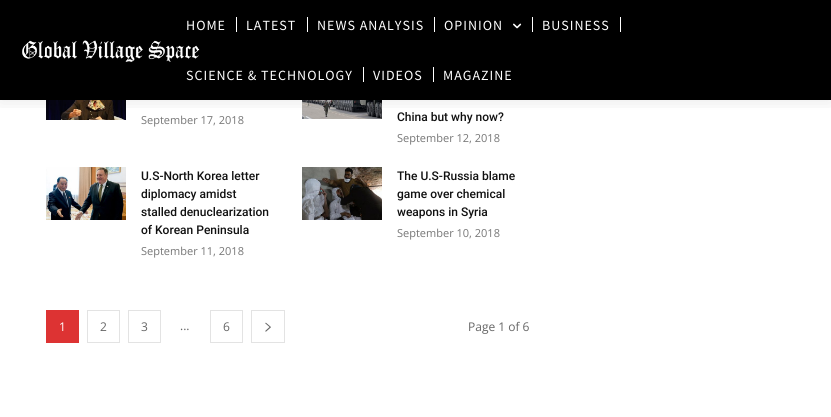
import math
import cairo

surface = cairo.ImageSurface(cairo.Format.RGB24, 831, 417)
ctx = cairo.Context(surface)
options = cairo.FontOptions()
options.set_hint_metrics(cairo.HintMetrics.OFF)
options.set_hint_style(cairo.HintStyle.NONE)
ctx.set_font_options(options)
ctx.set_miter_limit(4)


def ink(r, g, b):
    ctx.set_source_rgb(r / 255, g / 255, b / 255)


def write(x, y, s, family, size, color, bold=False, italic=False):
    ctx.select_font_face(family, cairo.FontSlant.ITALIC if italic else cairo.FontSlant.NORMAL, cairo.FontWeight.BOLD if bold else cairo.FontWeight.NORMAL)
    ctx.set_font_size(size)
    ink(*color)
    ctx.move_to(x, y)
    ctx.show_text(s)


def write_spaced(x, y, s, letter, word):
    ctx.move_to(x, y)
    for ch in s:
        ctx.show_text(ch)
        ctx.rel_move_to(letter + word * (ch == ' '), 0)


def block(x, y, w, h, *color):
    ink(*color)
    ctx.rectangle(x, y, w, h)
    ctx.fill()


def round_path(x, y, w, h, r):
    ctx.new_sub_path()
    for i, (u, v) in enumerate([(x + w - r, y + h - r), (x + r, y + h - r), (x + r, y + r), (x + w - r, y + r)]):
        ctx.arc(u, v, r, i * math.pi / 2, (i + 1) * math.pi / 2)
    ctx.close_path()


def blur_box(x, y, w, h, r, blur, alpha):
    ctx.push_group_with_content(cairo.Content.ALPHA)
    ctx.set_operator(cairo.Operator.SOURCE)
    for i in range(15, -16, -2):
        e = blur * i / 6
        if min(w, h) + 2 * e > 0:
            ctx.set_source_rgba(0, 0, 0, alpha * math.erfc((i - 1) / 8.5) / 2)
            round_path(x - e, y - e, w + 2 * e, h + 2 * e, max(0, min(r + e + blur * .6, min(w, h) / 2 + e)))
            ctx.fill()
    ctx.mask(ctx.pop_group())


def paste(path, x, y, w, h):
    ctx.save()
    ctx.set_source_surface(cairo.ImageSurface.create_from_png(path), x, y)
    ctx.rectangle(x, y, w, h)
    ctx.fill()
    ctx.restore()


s1 = dict(family="Open Sans", size=11, color=(118, 118, 118))
s2 = dict(family="Roboto Medium", size=12, color=(17, 17, 17))
s3 = dict(family="Open Sans", size=12, color=(255, 255, 255))
s4 = dict(family="Open Sans", size=12, color=(102, 102, 102))

ink(255, 255, 255)
ctx.paint()
block(0, 0, 831, 100, 0, 0, 0)
paste("pic3.png", 46, 100, 80, 20)
paste("pic4.png", 302, 100, 80, 19)
ctx.save()
ctx.rectangle(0, 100, 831, 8)
ctx.clip()
ink(0, 0, 0)
blur_box(0, 0, 831, 100, 0, 10, 0.1)
ctx.restore()
paste("pic1.png", 22, 40, 178, 22)
ctx.select_font_face("Source Sans Pro")
ctx.set_font_size(14)
ink(255, 255, 255)
write_spaced(186, 30, "HOME", 1, 0)
block(236, 17, 1, 15, 255, 255, 255)
write_spaced(246, 30, "LATEST", 1, 0)
block(307, 17, 1, 15, 255, 255, 255)
write_spaced(317, 30, "NEWS ANALYSIS", 1, 0)
block(434, 17, 1, 15, 255, 255, 255)
write_spaced(444, 30, "OPINION", 1, 0)
paste("pic2.png", 513, 23, 9, 6)
block(532, 17, 1, 15, 255, 255, 255)
write_spaced(542, 30, "BUSINESS", 1, 0)
block(620, 17, 1, 15, 255, 255, 255)
write_spaced(186, 80, "SCIENCE & TECHNOLOGY", 1, 0)
block(363, 67, 1, 15, 255, 255, 255)
write_spaced(373, 80, "VIDEOS", 1, 0)
block(433, 67, 1, 15, 255, 255, 255)
write_spaced(443, 80, "MAGAZINE", 1, 0)
write(141, 124, "September 17, 2018", **s1)
write(397, 121, "China but why now?", **s2)
write(397, 142, "September 12, 2018", **s1)
paste("pic5.png", 46, 167, 80, 53)
write(141, 180, "U.S-North Korea letter", **s2)
write(141, 198, "diplomacy amidst", **s2)
write(141, 216, "stalled denuclearization", **s2)
write(141, 234, "of Korean Peninsula", **s2)
write(141, 255, "September 11, 2018", **s1)
paste("pic6.png", 302, 167, 80, 53)
write(397, 180, "The U.S-Russia blame", **s2)
write(397, 198, "game over chemical", **s2)
write(397, 216, "weapons in Syria", **s2)
write(397, 237, "September 10, 2018", **s1)
block(46, 310, 33, 33, 221, 51, 51)
write(59, 331, "1", **s3)
ctx.rectangle(87.5, 310.5, 32, 32)
ink(227, 227, 227)
ctx.set_line_width(1)
ctx.stroke()
write(100, 331, "2", **s4)
ctx.rectangle(128.5, 310.5, 32, 32)
ink(227, 227, 227)
ctx.stroke()
write(141, 331, "3", **s4)
write(180, 330, "...", **s4)
ctx.rectangle(210.5, 310.5, 32, 32)
ink(227, 227, 227)
ctx.stroke()
write(223, 331, "6", **s4)
ctx.rectangle(251.5, 310.5, 33, 32)
ink(227, 227, 227)
ctx.stroke()
paste("pic7.png", 265, 322, 6, 10)
write(468, 331, "Page 1 of 6", **s4)
surface.write_to_png("screenshot.png")
